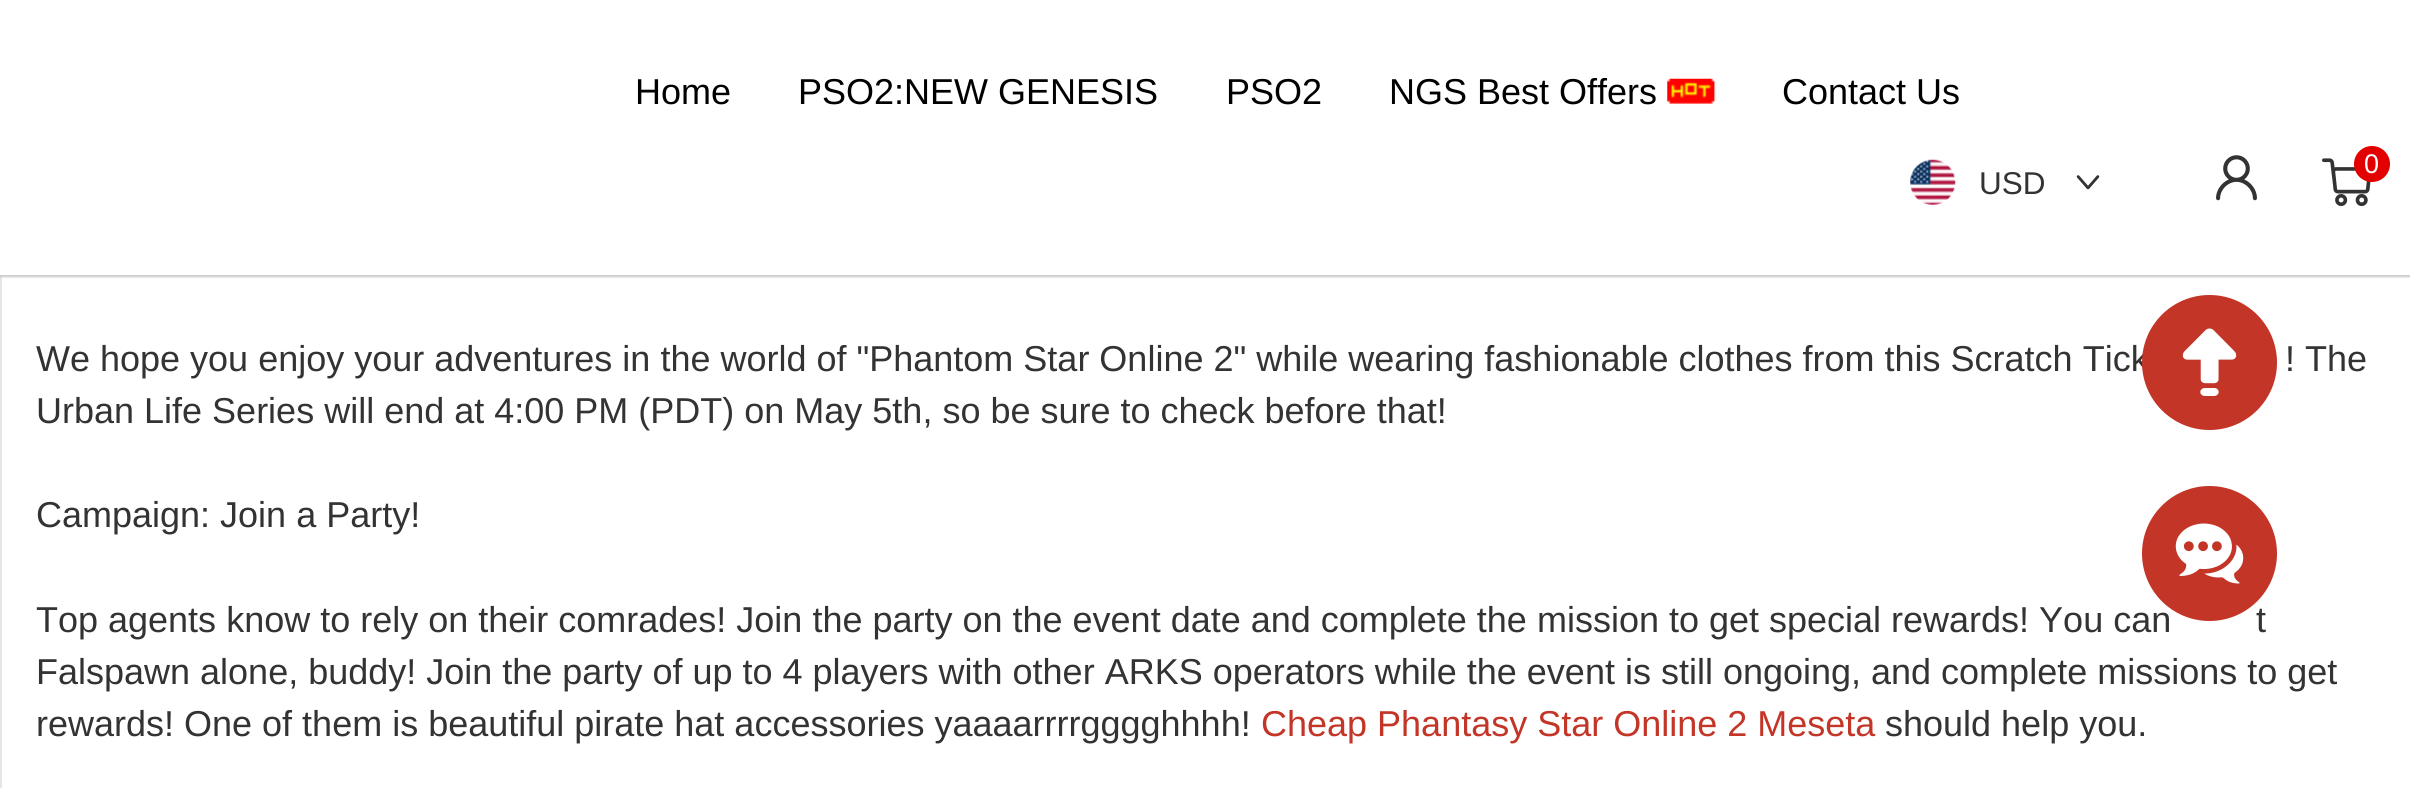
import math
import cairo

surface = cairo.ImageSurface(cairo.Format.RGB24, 2410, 788)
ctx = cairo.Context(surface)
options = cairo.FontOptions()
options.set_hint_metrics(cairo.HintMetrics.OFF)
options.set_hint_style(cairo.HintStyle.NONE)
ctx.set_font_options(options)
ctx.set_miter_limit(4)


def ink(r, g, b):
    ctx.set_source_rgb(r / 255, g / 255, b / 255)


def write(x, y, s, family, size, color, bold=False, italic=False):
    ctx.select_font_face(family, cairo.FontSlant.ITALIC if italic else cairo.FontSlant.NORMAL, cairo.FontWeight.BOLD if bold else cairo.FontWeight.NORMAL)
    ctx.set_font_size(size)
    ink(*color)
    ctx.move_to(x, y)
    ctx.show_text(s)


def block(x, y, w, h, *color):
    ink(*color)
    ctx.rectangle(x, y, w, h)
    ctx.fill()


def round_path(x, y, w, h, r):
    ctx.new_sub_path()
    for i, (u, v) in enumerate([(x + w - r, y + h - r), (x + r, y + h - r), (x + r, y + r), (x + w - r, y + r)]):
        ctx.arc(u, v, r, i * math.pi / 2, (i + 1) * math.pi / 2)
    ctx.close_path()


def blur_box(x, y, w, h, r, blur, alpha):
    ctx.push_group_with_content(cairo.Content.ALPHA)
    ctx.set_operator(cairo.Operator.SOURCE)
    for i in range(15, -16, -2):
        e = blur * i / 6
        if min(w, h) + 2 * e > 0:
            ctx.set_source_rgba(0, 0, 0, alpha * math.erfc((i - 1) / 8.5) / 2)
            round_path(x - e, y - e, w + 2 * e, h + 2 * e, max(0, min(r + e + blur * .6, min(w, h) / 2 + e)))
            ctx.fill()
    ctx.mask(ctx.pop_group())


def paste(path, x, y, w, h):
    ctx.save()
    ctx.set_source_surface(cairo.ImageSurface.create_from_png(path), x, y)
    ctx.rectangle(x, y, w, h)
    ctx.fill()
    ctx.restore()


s1 = dict(family="Liberation Sans", size=36, color=(0, 0, 0))
s2 = dict(family="Liberation Sans", size=31.5, color=(51, 51, 51))
s3 = dict(family="Liberation Sans", size=27, color=(255, 255, 255))
s4 = dict(family="Liberation Sans", size=36, color=(51, 51, 51))
s5 = dict(family="Liberation Sans", size=36, color=(195, 53, 39))

ink(255, 255, 255)
ctx.paint()
ctx.rectangle(1, -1, 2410, 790)
ink(229, 229, 229)
ctx.stroke()
ink(201, 201, 201)
blur_box(-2, -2, 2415, 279, 0, 1, 1)
block(0, 0, 2410, 275, 255, 255, 255)
write(635, 104, "Home", **s1)
write(798, 104, "PSO2:NEW GENESIS", **s1)
write(1226, 104, "PSO2", **s1)
write(1389, 104, "NGS Best Offers", **s1)
paste("pic1.png", 1667, 78, 49, 26)
write(1782, 104, "Contact Us", **s1)
paste("pic2.png", 1910, 159, 46, 46)
write(1979, 194, "USD", **s2)
paste("pic3.png", 2076, 175, 24, 15)
paste("pic4.png", 2216, 155, 41, 46)
paste("pic5.png", 2322, 158, 49, 49)
ink(226, 0, 0)
ctx.arc(2372, 164, 18, 0, 2 * math.pi)
ctx.fill()
write(2364, 173, "0", **s3)
write(36, 371, "We hope you enjoy your adventures in the world of \"Phantom Star Online 2\" while wearing fashionable clothes from this Scratch Tick", **s4)
ink(195, 53, 39)
ctx.new_path()
ctx.arc(2209.5, 362.5, 67.5, 0, 2 * math.pi)
ctx.fill()
paste("pic6.png", 2182, 328, 55, 68)
write(36, 632, "Top agents know to rely on their comrades! Join the party on the event date and complete the mission to get special rewards! You can", **s4)
write(2256, 632, "t", **s4)
ink(195, 53, 39)
ctx.new_path()
ctx.arc(2209.5, 553.5, 67.5, 0, 2 * math.pi)
ctx.fill()
paste("pic7.png", 2175, 523, 69, 61)
write(2285, 371, "! The", **s4)
write(36, 423, "Urban Life Series will end at 4:00 PM (PDT) on May 5th, so be sure to check before that!", **s4)
write(36, 527, "Campaign: Join a Party!", **s4)
write(36, 684, "Falspawn alone, buddy! Join the party of up to 4 players with other ARKS operators while the event is still ongoing, and complete missions to get", **s4)
write(36, 736, "rewards! One of them is beautiful pirate hat accessories yaaaarrrrgggghhhh!", **s4)
write(1261, 736, "Cheap Phantasy Star Online 2 Meseta", **s5)
write(1885, 736, "should help you.", **s4)
surface.write_to_png("screenshot.png")
